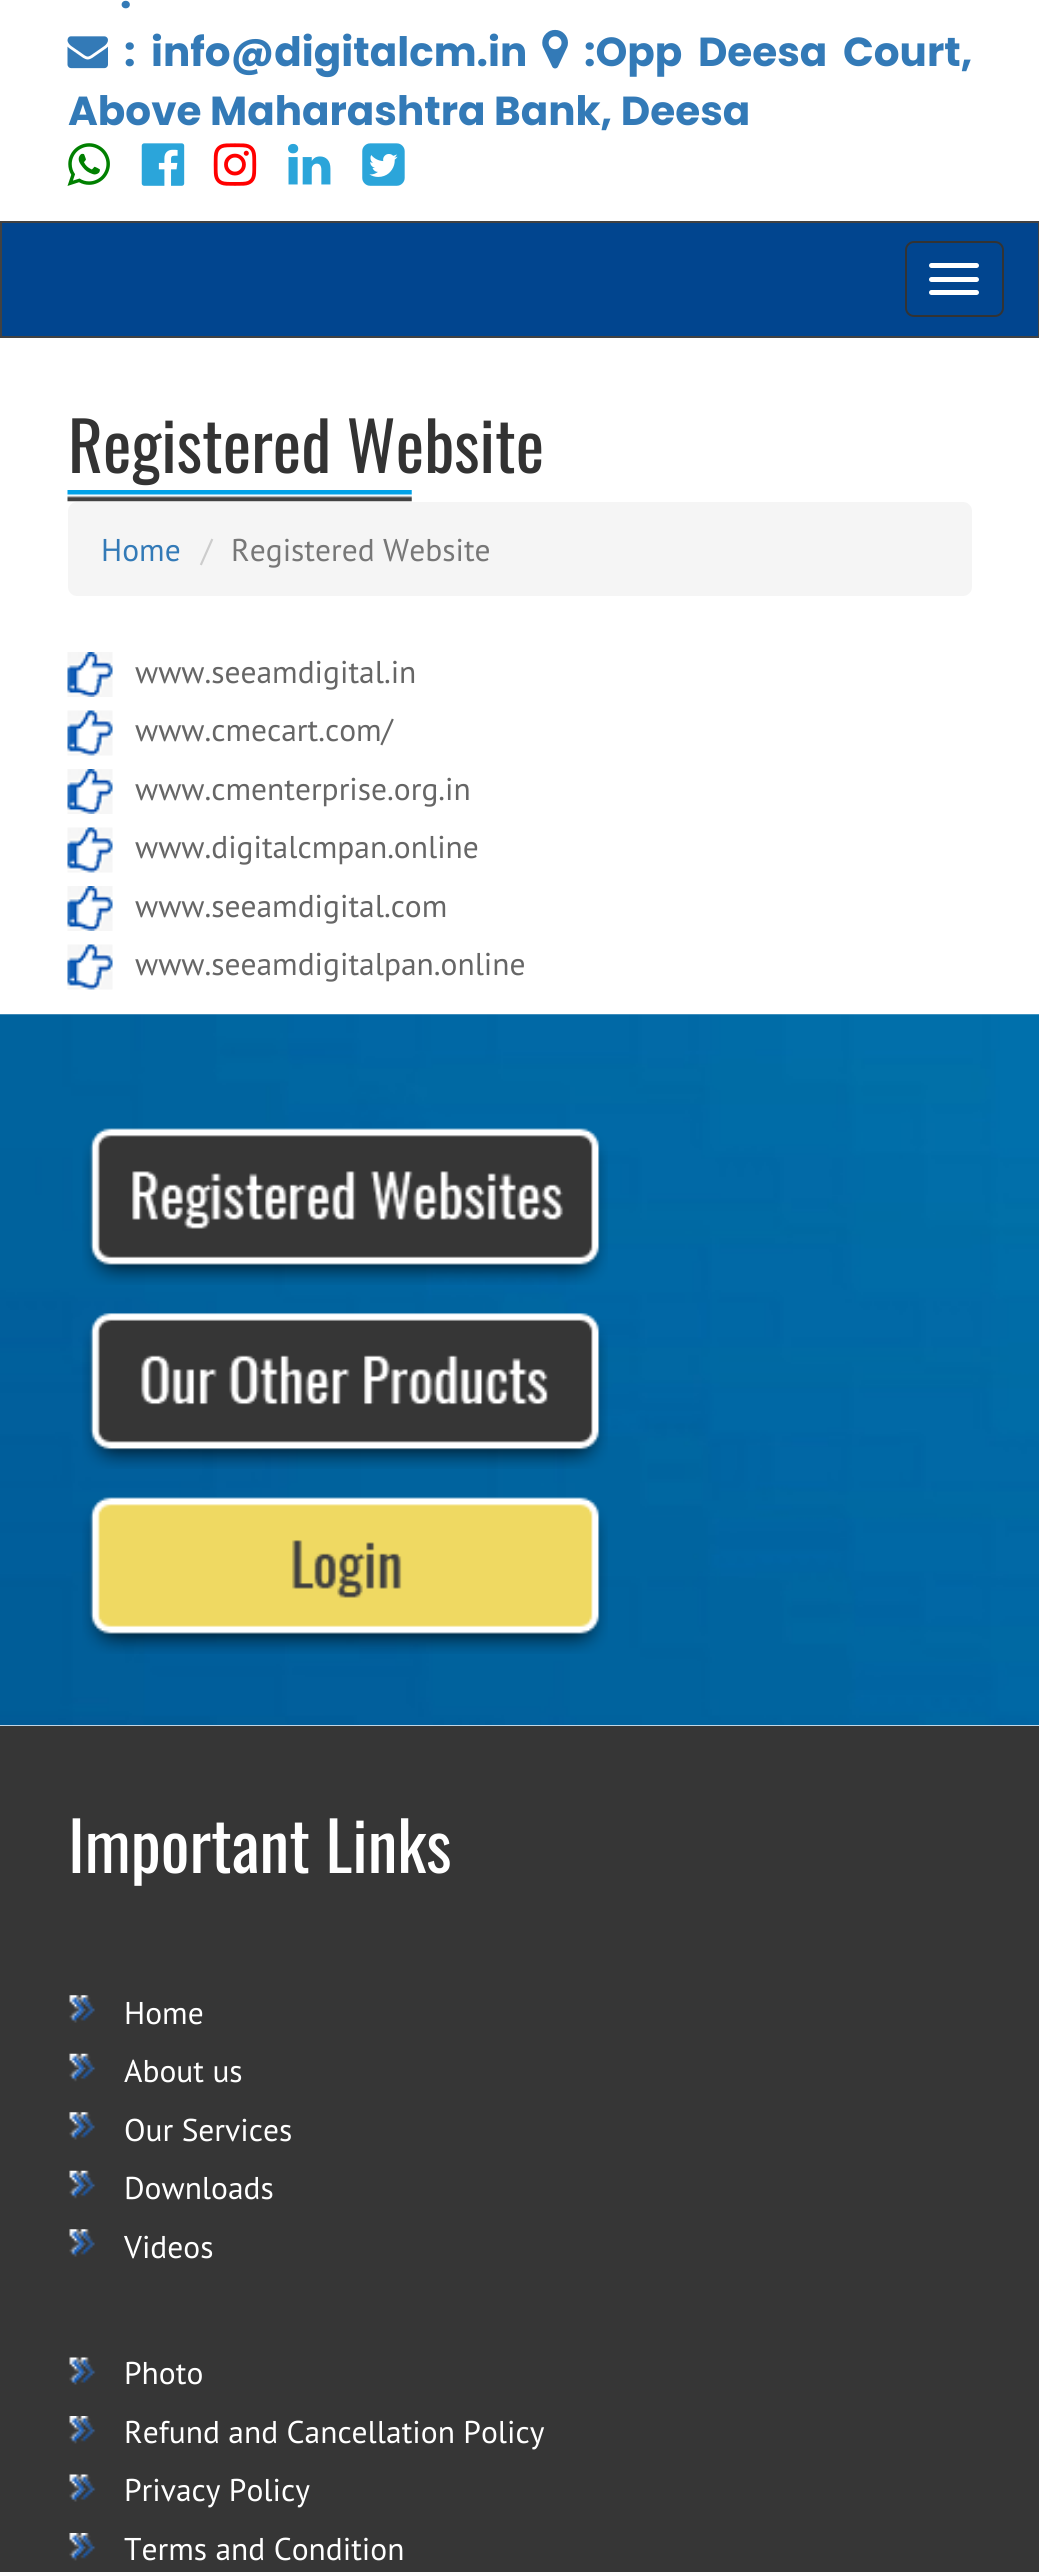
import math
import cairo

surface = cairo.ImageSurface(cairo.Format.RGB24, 1039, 2572)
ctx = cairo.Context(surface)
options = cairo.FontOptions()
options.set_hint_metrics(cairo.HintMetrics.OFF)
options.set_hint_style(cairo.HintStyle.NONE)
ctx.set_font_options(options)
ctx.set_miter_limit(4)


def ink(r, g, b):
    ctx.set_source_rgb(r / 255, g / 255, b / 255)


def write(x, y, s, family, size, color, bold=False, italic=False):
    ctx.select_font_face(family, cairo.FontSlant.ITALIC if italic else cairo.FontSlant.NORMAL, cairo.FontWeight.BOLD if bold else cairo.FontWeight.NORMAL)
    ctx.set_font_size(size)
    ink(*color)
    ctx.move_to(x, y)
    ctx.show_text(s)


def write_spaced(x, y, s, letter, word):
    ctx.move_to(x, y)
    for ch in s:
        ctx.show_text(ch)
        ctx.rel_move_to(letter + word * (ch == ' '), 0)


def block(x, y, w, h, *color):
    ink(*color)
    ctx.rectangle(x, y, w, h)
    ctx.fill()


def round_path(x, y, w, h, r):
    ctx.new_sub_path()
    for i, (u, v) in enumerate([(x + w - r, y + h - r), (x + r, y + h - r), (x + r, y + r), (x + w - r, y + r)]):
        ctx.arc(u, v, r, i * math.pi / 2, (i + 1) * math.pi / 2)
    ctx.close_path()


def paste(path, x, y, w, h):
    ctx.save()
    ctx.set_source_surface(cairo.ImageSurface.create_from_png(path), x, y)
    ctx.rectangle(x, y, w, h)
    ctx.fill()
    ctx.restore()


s1 = dict(family="Poppins", size=40.5, color=(51, 122, 183), bold=True)
s2 = dict(family="Oswald", size=67.5, color=(51, 51, 51))
s3 = dict(family="PT Sans", size=31.5, color=(51, 122, 183))
s4 = dict(family="PT Sans", size=31.5, color=(204, 204, 204))
s5 = dict(family="PT Sans", size=31.5, color=(119, 119, 119))
s6 = dict(family="PT Sans", size=31.5, color=(102, 102, 102))
s7 = dict(family="Oswald", size=67.5, color=(255, 255, 255))
s8 = dict(family="PT Sans", size=31.5, color=(255, 255, 255))

ink(255, 255, 255)
ctx.paint()
write(120, 8, ".", **s1)
paste("pic1.png", 67, 36, 41, 33)
write(124, 66, ":", **s1)
write(151, 66, "info@digitalcm.in", **s1)
paste("pic2.png", 542, 29, 26, 40)
write_spaced(584, 66, ":Opp Deesa Court,", 0, 7)
write(68, 125, "Above Maharashtra Bank, Deesa", **s1)
paste("pic3.png", 67, 143, 43, 43)
paste("pic4.png", 141, 143, 44, 43)
paste("pic5.png", 213, 143, 44, 43)
paste("pic6.png", 288, 143, 43, 42)
paste("pic7.png", 362, 143, 43, 43)
ink(1, 69, 143)
ctx.rectangle(1, 222, 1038, 115)
ctx.fill_preserve()
ink(66, 66, 66)
ctx.stroke()
round_path(906, 242, 97, 74, 8)
ink(51, 51, 51)
ctx.stroke()
ink(255, 255, 255)
round_path(929, 263, 50, 5, 2.5)
ctx.fill()
round_path(929, 277, 50, 5, 2.5)
ctx.fill()
round_path(929, 290, 50, 5, 2.5)
ctx.fill()
write(68, 473, "Registered Website", **s2)
paste("pic8.png", 67, 490, 345, 12)
ink(245, 245, 245)
round_path(68, 502, 904, 94, 9)
ctx.fill()
write(101, 561, "Home", **s3)
write(201, 561, "/", **s4)
write(231, 561, "Registered Website", **s5)
paste("pic9.png", 67, 652, 46, 45)
write(135, 683, "www.seeamdigital.in", **s6)
paste("pic10.png", 67, 710, 46, 46)
write(135, 741, "www.cmecart.com/", **s6)
paste("pic9.png", 67, 769, 46, 45)
write(135, 800, "www.cmenterprise.org.in", **s6)
paste("pic10.png", 67, 827, 46, 46)
write(135, 858, "www.digitalcmpan.online", **s6)
paste("pic9.png", 67, 886, 46, 45)
write(135, 917, "www.seeamdigital.com", **s6)
paste("pic10.png", 67, 944, 46, 46)
write(135, 975, "www.seeamdigitalpan.online", **s6)
paste("pic11.png", 0, 1014, 1039, 712)
paste("pic12.png", 82, 1128, 526, 157)
paste("pic13.png", 82, 1313, 526, 156)
paste("pic14.png", 82, 1497, 526, 157)
block(0, 1726, 1039, 846, 54, 54, 54)
write(68, 1873, "Important Links", **s7)
paste("pic15.png", 69, 1995, 26, 28)
write(124, 2024, "Home", **s8)
paste("pic16.png", 69, 2053, 27, 29)
write(124, 2082, "About us", **s8)
paste("pic15.png", 69, 2112, 26, 28)
write(124, 2141, "Our Services", **s8)
paste("pic16.png", 69, 2170, 27, 29)
write(124, 2199, "Downloads", **s8)
paste("pic15.png", 69, 2229, 26, 28)
write(124, 2258, "Videos", **s8)
paste("pic17.png", 69, 2357, 27, 28)
write(124, 2384, "Photo", **s8)
paste("pic18.png", 69, 2416, 27, 28)
write(124, 2443, "Refund and Cancellation Policy", **s8)
paste("pic17.png", 69, 2474, 27, 28)
write(124, 2501, "Privacy Policy", **s8)
paste("pic18.png", 69, 2533, 27, 28)
write(124, 2560, "Terms and Condition", **s8)
surface.write_to_png("screenshot.png")
